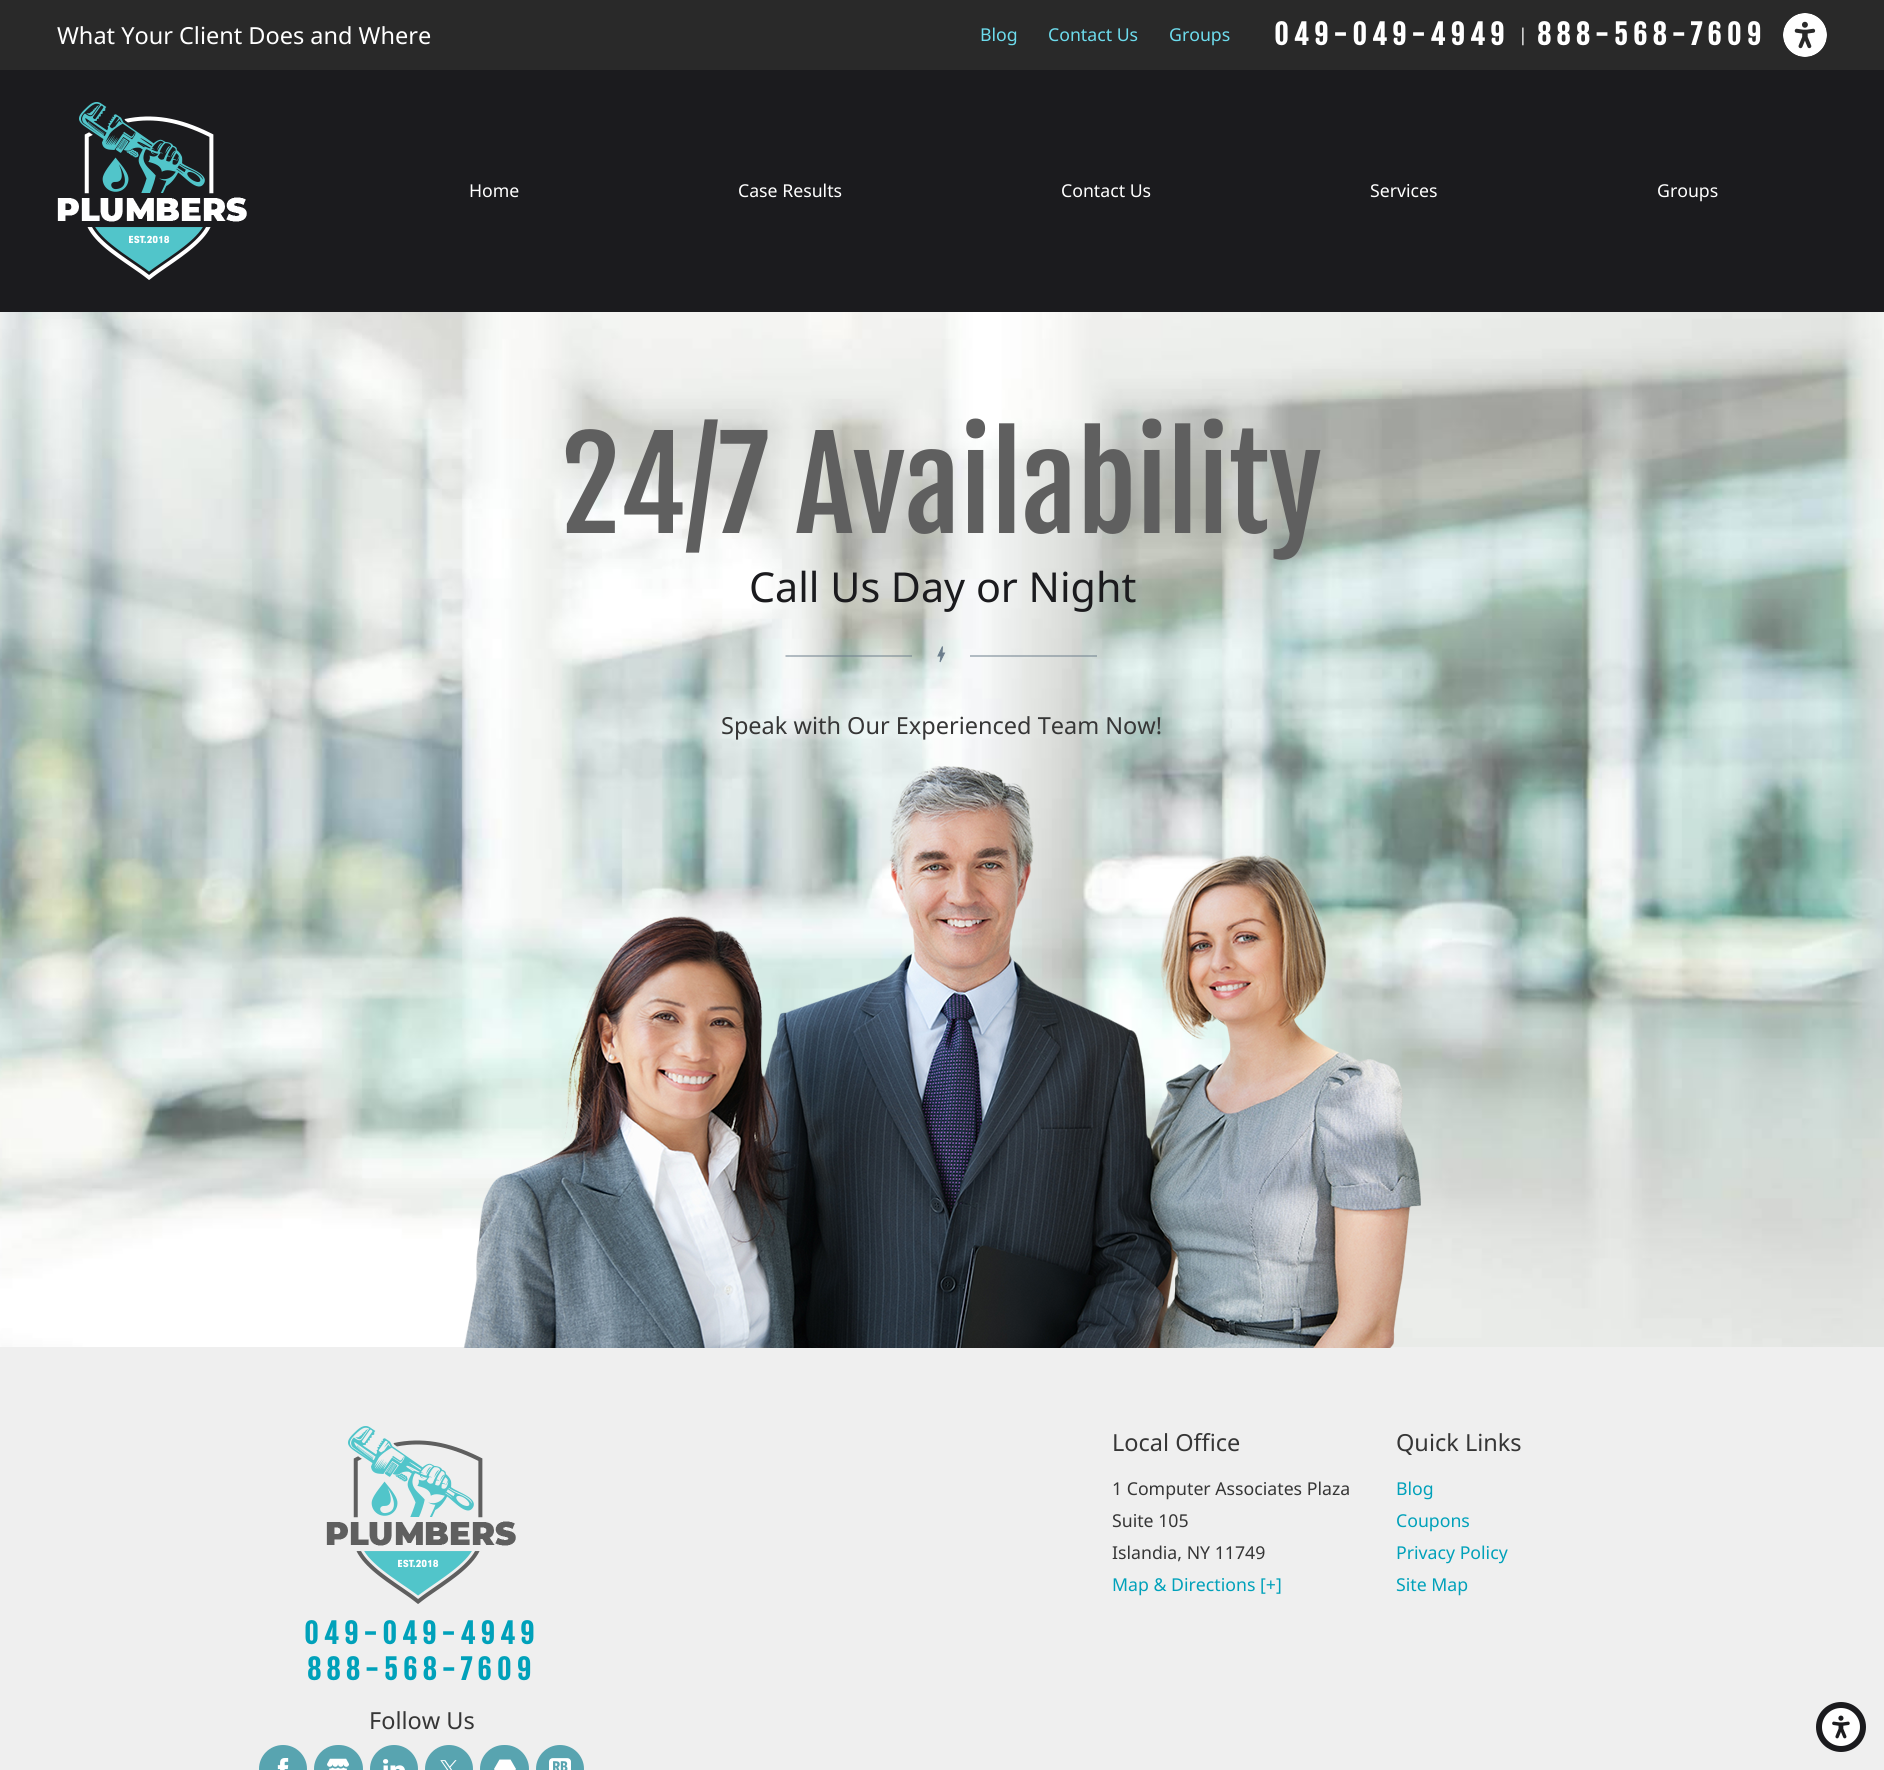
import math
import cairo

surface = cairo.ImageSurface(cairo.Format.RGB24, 1884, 1770)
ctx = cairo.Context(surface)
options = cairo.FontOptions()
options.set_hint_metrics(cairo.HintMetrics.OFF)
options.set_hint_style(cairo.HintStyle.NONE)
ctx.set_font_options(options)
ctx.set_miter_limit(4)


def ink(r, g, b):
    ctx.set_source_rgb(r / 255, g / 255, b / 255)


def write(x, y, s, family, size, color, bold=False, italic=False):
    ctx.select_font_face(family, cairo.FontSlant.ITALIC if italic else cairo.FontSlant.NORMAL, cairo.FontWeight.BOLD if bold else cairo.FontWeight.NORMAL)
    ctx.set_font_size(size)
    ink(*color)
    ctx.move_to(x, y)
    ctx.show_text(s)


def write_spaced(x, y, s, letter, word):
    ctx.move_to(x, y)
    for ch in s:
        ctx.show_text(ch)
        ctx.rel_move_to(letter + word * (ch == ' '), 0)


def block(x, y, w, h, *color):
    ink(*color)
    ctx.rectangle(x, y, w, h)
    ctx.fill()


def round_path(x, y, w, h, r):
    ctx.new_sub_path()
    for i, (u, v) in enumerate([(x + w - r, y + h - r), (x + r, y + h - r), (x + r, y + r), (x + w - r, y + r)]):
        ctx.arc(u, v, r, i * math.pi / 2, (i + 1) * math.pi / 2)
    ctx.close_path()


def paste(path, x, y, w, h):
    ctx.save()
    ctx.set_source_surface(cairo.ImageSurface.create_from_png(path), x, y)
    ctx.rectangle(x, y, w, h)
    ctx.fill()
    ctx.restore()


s1 = dict(family="Noto Sans", size=23.5, color=(255, 255, 255))
s2 = dict(family="Noto Sans", size=17.7, color=(109, 220, 237))
s3 = dict(family="Noto Sans", size=17.7, color=(255, 255, 255))
s4 = dict(family="Fjalla One", size=123.5, color=(95, 95, 95))
s5 = dict(family="Noto Sans", size=41.25, color=(27, 27, 30))
s6 = dict(family="Noto Sans", size=23.5, color=(54, 54, 54))
s7 = dict(family="Noto Sans", size=17.7, color=(54, 54, 54))
s8 = dict(family="Noto Sans", size=17.7, color=(0, 161, 186))

ink(255, 255, 255)
ctx.paint()
block(0, 70, 1884, 242, 27, 27, 30)
block(0, 0, 1884, 70, 41, 41, 41)
write(57, 44, "What Your Client Does and Where", **s1)
write(980, 41, "Blog", **s2)
write(1048, 41, "Contact Us", **s2)
write(1169, 41, "Groups", **s2)
ctx.select_font_face("Fjalla One", cairo.FontSlant.NORMAL, cairo.FontWeight.BOLD)
ctx.set_font_size(27.5)
ink(255, 255, 255)
write_spaced(1274, 45, "049-049-4949", 5.5, 0)
write(1518, 41, "|", **s3)
ctx.select_font_face("Fjalla One", cairo.FontSlant.NORMAL, cairo.FontWeight.BOLD)
ctx.set_font_size(27.5)
write_spaced(1537, 45, "888-568-7609", 5.5, 0)
paste("pic1.png", 1783, 13, 44, 44)
paste("pic2.png", 57, 102, 190, 178)
write(469, 197, "Home", **s3)
write(738, 197, "Case Results", **s3)
write(1061, 197, "Contact Us", **s3)
write(1370, 197, "Services", **s3)
write(1657, 197, "Groups", **s3)
block(0, 1347, 1884, 423, 239, 239, 239)
ink(27, 27, 30)
ctx.new_path()
ctx.arc(1841, 1727, 25, 0, 2 * math.pi)
ctx.fill()
paste("pic3.png", 1822, 1708, 38, 38)
paste("pic4.png", 0, 312, 1884, 1035)
write(561, 533, "24/7 Availability", **s4)
write(749, 602, "Call Us Day or Night", **s5)
ctx.new_path()
ctx.move_to(912, 656)
ctx.line_to(785.5, 656)
ink(107, 125, 140)
ctx.set_line_width(1)
ctx.stroke()
ctx.new_path()
ctx.move_to(942.5, 646.5)
ctx.line_to(938, 656)
ctx.line_to(941, 656)
ctx.line_to(940, 662)
ctx.line_to(944.5, 653)
ctx.line_to(942, 653)
ctx.close_path()
ctx.fill_preserve()
ctx.stroke()
ctx.new_path()
ctx.move_to(970, 656)
ctx.line_to(1097, 656)
ctx.stroke()
write(721, 734, "Speak with Our Experienced Team Now!", **s6)
paste("pic5.png", 463, 766, 958, 582)
write(1112, 1451, "Local Office", **s6)
write(1112, 1495, "1 Computer Associates Plaza", **s7)
write(1112, 1527, "Suite 105", **s7)
write(1112, 1559, "Islandia, NY 11749", **s7)
write(1112, 1591, "Map & Directions [+]", **s8)
write(1396, 1451, "Quick Links", **s6)
write(1396, 1495, "Blog", **s8)
write(1396, 1527, "Coupons", **s8)
write(1396, 1559, "Privacy Policy", **s8)
write(1396, 1591, "Site Map", **s8)
paste("pic6.png", 326, 1426, 190, 178)
ctx.select_font_face("Fjalla One", cairo.FontSlant.NORMAL, cairo.FontWeight.BOLD)
ctx.set_font_size(27.5)
write_spaced(304, 1644, "049-049-4949", 5.5, 0)
write_spaced(307, 1680, "888-568-7609", 5.5, 0)
write(369, 1729, "Follow Us", **s6)
ink(88, 164, 176)
ctx.new_path()
ctx.arc(283, 1769, 24, 0, 2 * math.pi)
ctx.fill()
paste("pic7.png", 277, 1758, 12, 12)
round_path(314, 1745, 49, 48, 24)
ctx.fill()
paste("pic8.png", 327, 1758, 22, 12)
ctx.arc(394, 1769, 24, 0, 2 * math.pi)
ctx.fill()
paste("pic9.png", 383, 1759, 22, 11)
ctx.arc(449, 1769, 24, 0, 2 * math.pi)
ctx.fill()
paste("pic10.png", 440, 1760, 17, 10)
round_path(480, 1745, 49, 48, 24)
ctx.fill()
ink(255, 255, 255)
ctx.new_path()
ctx.move_to(516, 1769)
ctx.line_to(510.5, 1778.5)
ctx.line_to(499.5, 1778.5)
ctx.line_to(494, 1769)
ctx.line_to(499.5, 1759.5)
ctx.line_to(510.5, 1759.5)
ctx.close_path()
ctx.fill()
ink(88, 164, 176)
ctx.arc(560, 1769, 24, 0, 2 * math.pi)
ctx.fill()
paste("pic11.png", 549, 1758, 22, 12)
surface.write_to_png("screenshot.png")
